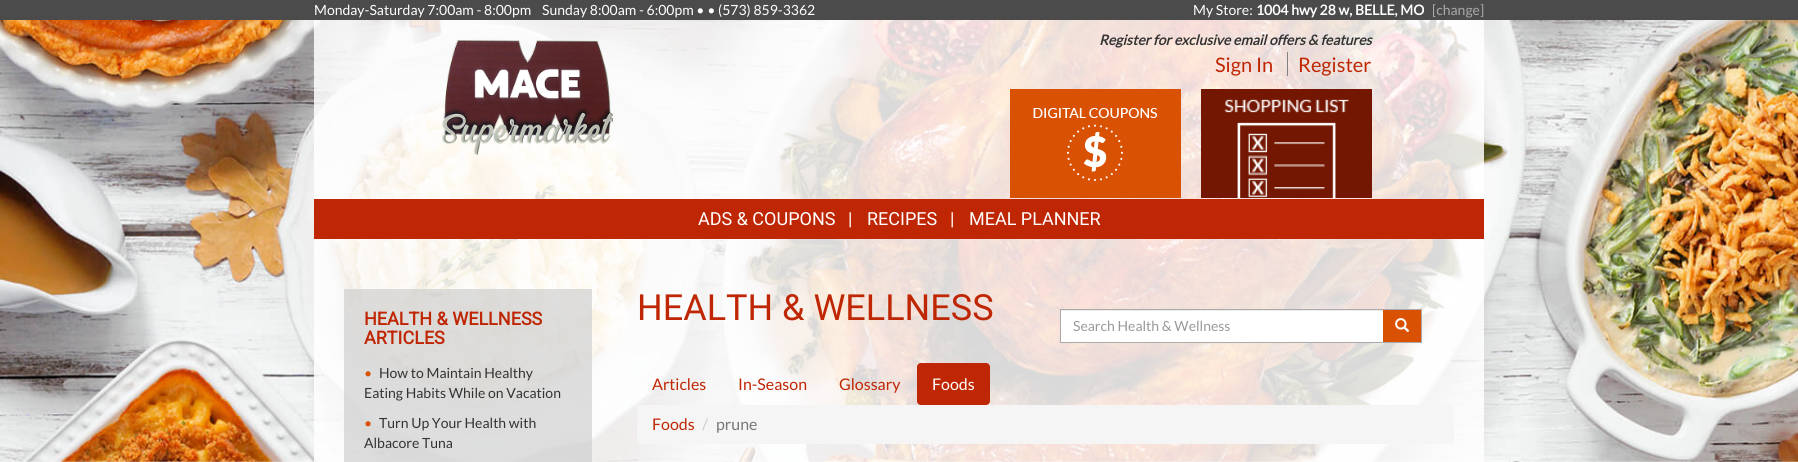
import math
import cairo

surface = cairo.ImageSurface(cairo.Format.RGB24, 1798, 462)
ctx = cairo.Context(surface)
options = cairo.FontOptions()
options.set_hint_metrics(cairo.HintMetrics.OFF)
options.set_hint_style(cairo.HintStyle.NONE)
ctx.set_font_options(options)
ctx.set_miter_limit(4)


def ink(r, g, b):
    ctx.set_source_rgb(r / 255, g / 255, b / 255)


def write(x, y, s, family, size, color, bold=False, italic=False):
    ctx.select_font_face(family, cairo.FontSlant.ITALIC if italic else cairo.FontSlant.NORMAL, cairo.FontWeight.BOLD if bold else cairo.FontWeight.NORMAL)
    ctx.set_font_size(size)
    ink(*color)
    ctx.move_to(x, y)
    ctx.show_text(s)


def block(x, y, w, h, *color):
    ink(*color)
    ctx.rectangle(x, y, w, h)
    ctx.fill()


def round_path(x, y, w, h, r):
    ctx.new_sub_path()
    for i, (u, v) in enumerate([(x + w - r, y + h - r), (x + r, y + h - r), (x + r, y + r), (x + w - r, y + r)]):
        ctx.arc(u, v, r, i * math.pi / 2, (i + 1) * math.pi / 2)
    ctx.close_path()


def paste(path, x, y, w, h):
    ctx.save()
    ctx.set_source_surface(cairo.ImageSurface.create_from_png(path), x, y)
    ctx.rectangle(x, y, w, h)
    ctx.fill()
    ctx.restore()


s1 = dict(family="Lato", size=14, color=(255, 255, 255))
s2 = dict(family="Lato", size=14, color=(255, 255, 255), bold=True)
s3 = dict(family="Lato", size=14, color=(170, 170, 170))
s4 = dict(family="Lato", size=14, color=(51, 51, 51), bold=True, italic=True)
s5 = dict(family="Lato", size=20, color=(191, 38, 4))
s6 = dict(family="Roboto", size=18, color=(255, 255, 255))
s7 = dict(family="Roboto", size=18, color=(191, 38, 4), bold=True)
s8 = dict(family="Lato", size=14, color=(217, 82, 4))
s9 = dict(family="Lato", size=14, color=(51, 51, 51))
s10 = dict(family="Roboto", size=36, color=(191, 38, 4))
s11 = dict(family="Lato", size=14, color=(153, 153, 153))
s12 = dict(family="Lato", size=16, color=(191, 38, 4))
s13 = dict(family="Lato", size=16, color=(255, 255, 255))
s14 = dict(family="Lato", size=16, color=(204, 204, 204))
s15 = dict(family="Lato", size=16, color=(119, 119, 119))

ink(255, 255, 255)
ctx.paint()
paste("pic1.png", 0, 20, 1798, 442)
block(0, 0, 1798, 20, 75, 75, 75)
write(314, 15, "Monday-Saturday 7:00am - 8:00pm    Sunday 8:00am - 6:00pm • • (573) 859-3362", **s1)
write(1193, 15, "My Store:", **s1)
write(1256, 15, "1004 hwy 28 w, BELLE, MO", **s2)
write(1432, 15, "[change]", **s3)
ctx.set_source_rgba(1, 1, 1, 0.85)
ctx.rectangle(314, 20, 1170, 179)
ctx.fill()
paste("pic2.png", 442, 40, 171, 115)
write(1099, 45, "Register for exclusive email offers & features", **s4)
write(1215, 72, "Sign In", **s5)
block(1287, 52, 1, 24, 128, 128, 128)
write(1298, 72, "Register", **s5)
block(1010, 89, 171, 109, 217, 82, 4)
paste("pic3.png", 1033, 108, 124, 73)
block(1201, 89, 171, 109, 115, 23, 2)
paste("pic4.png", 1224, 99, 125, 99)
block(314, 199, 1170, 40, 191, 38, 4)
write(698, 225, "ADS & COUPONS", **s6)
write(848, 225, "|", **s6)
write(867, 225, "RECIPES", **s6)
write(950, 225, "|", **s6)
write(969, 225, "MEAL PLANNER", **s6)
ctx.set_source_rgba(1, 1, 1, 0.85)
ctx.rectangle(314, 239, 1170, 223)
ctx.fill()
ctx.set_source_rgba(0.8, 0.8, 0.8, 0.65)
ctx.rectangle(344, 289, 248, 173)
ctx.fill()
write(364, 325, "HEALTH & WELLNESS", **s7)
write(364, 344, "ARTICLES", **s7)
write(364, 378, "•", **s8)
write(379, 378, "How to Maintain Healthy", **s9)
write(364, 398, "Eating Habits While on Vacation", **s9)
write(364, 428, "•", **s8)
write(379, 428, "Turn Up Your Health with", **s9)
write(364, 448, "Albacore Tuna", **s9)
write(637, 320, "HEALTH & WELLNESS", **s10)
block(1061, 311, 322, 31, 255, 255, 255)
block(1061, 310, 324, 1, 236, 236, 236)
ctx.rectangle(1060.5, 309.5, 325, 33)
ink(170, 170, 170)
ctx.set_line_width(1)
ctx.stroke()
write(1073, 331, "Search Health & Wellness", **s11)
block(1383, 310, 38, 32, 217, 82, 4)
block(1383, 309, 39, 1, 170, 170, 170)
block(1421, 309, 1, 34, 170, 170, 170)
block(1383, 342, 39, 1, 170, 170, 170)
paste("pic5.png", 1395, 318, 15, 14)
write(652, 390, "Articles", **s12)
write(738, 390, "In-Season", **s12)
write(839, 390, "Glossary", **s12)
round_path(917, 363, 73, 42, 4)
ctx.fill()
write(932, 390, "Foods", **s13)
ink(245, 245, 245)
round_path(637, 405, 817, 39, 4)
ctx.fill()
write(652, 430, "Foods", **s12)
write(702, 430, "/", **s14)
write(716, 430, "prune", **s15)
surface.write_to_png("screenshot.png")
